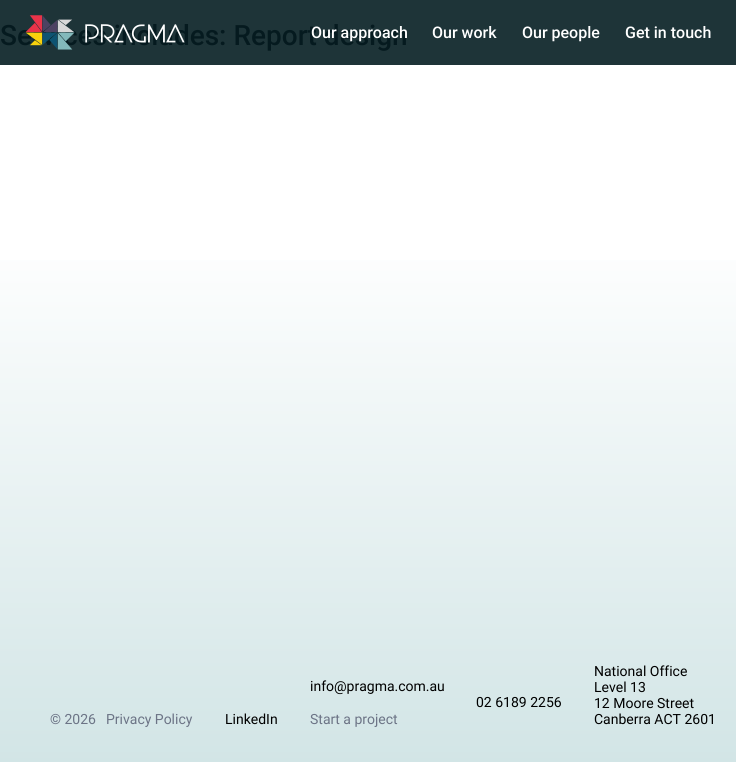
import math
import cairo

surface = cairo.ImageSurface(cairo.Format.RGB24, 736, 762)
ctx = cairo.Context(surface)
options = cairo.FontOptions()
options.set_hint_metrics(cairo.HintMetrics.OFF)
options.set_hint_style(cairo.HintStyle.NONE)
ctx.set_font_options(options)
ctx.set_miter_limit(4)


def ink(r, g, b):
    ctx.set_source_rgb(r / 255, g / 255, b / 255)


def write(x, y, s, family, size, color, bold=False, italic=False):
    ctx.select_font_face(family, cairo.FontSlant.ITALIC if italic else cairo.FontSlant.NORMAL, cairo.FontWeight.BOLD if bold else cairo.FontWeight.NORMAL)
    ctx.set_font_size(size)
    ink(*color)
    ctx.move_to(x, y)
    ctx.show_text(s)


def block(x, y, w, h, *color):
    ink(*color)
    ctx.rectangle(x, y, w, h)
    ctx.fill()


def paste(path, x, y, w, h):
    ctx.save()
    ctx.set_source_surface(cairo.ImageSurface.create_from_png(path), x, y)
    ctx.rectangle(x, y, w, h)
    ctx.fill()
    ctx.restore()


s1 = dict(family="Roboto Medium", size=28, color=(5, 26, 31))
s2 = dict(family="Roboto Medium", size=16, color=(255, 255, 255))
s3 = dict(family="Roboto", size=14, color=(0, 0, 0))
s4 = dict(family="Roboto", size=14, color=(108, 116, 134))

ink(255, 255, 255)
ctx.paint()
block(0, 0, 736, 65, 30, 52, 56)
write(0, 45, "Services includes: Report design", **s1)
paste("pic1.png", 25, 15, 50, 35)
paste("pic2.png", 85, 24, 100, 19)
write(311, 38, "Our approach", **s2)
write(432, 38, "Our work", **s2)
write(522, 38, "Our people", **s2)
write(625, 38, "Get in touch", **s2)
gradient = cairo.LinearGradient(368, 230, 368, 762)
gradient.add_color_stop_rgba(0, 1, 1, 1, 1)
gradient.add_color_stop_rgba(1, 0.824, 0.898, 0.902, 1)
ctx.set_source(gradient)
ctx.rectangle(0, 260, 736, 502)
ctx.fill()
write(310, 691, "info@pragma.com.au", **s3)
write(310, 724, "Start a project", **s4)
write(476, 707, "02 6189 2256", **s3)
write(594, 676, "National Office", **s3)
write(594, 692, "Level 13", **s3)
write(594, 708, "12 Moore Street", **s3)
write(594, 724, "Canberra ACT 2601", **s3)
write(50, 724, "© 2026", **s4)
write(106, 724, "Privacy Policy", **s4)
write(225, 724, "LinkedIn", **s3)
surface.write_to_png("screenshot.png")
